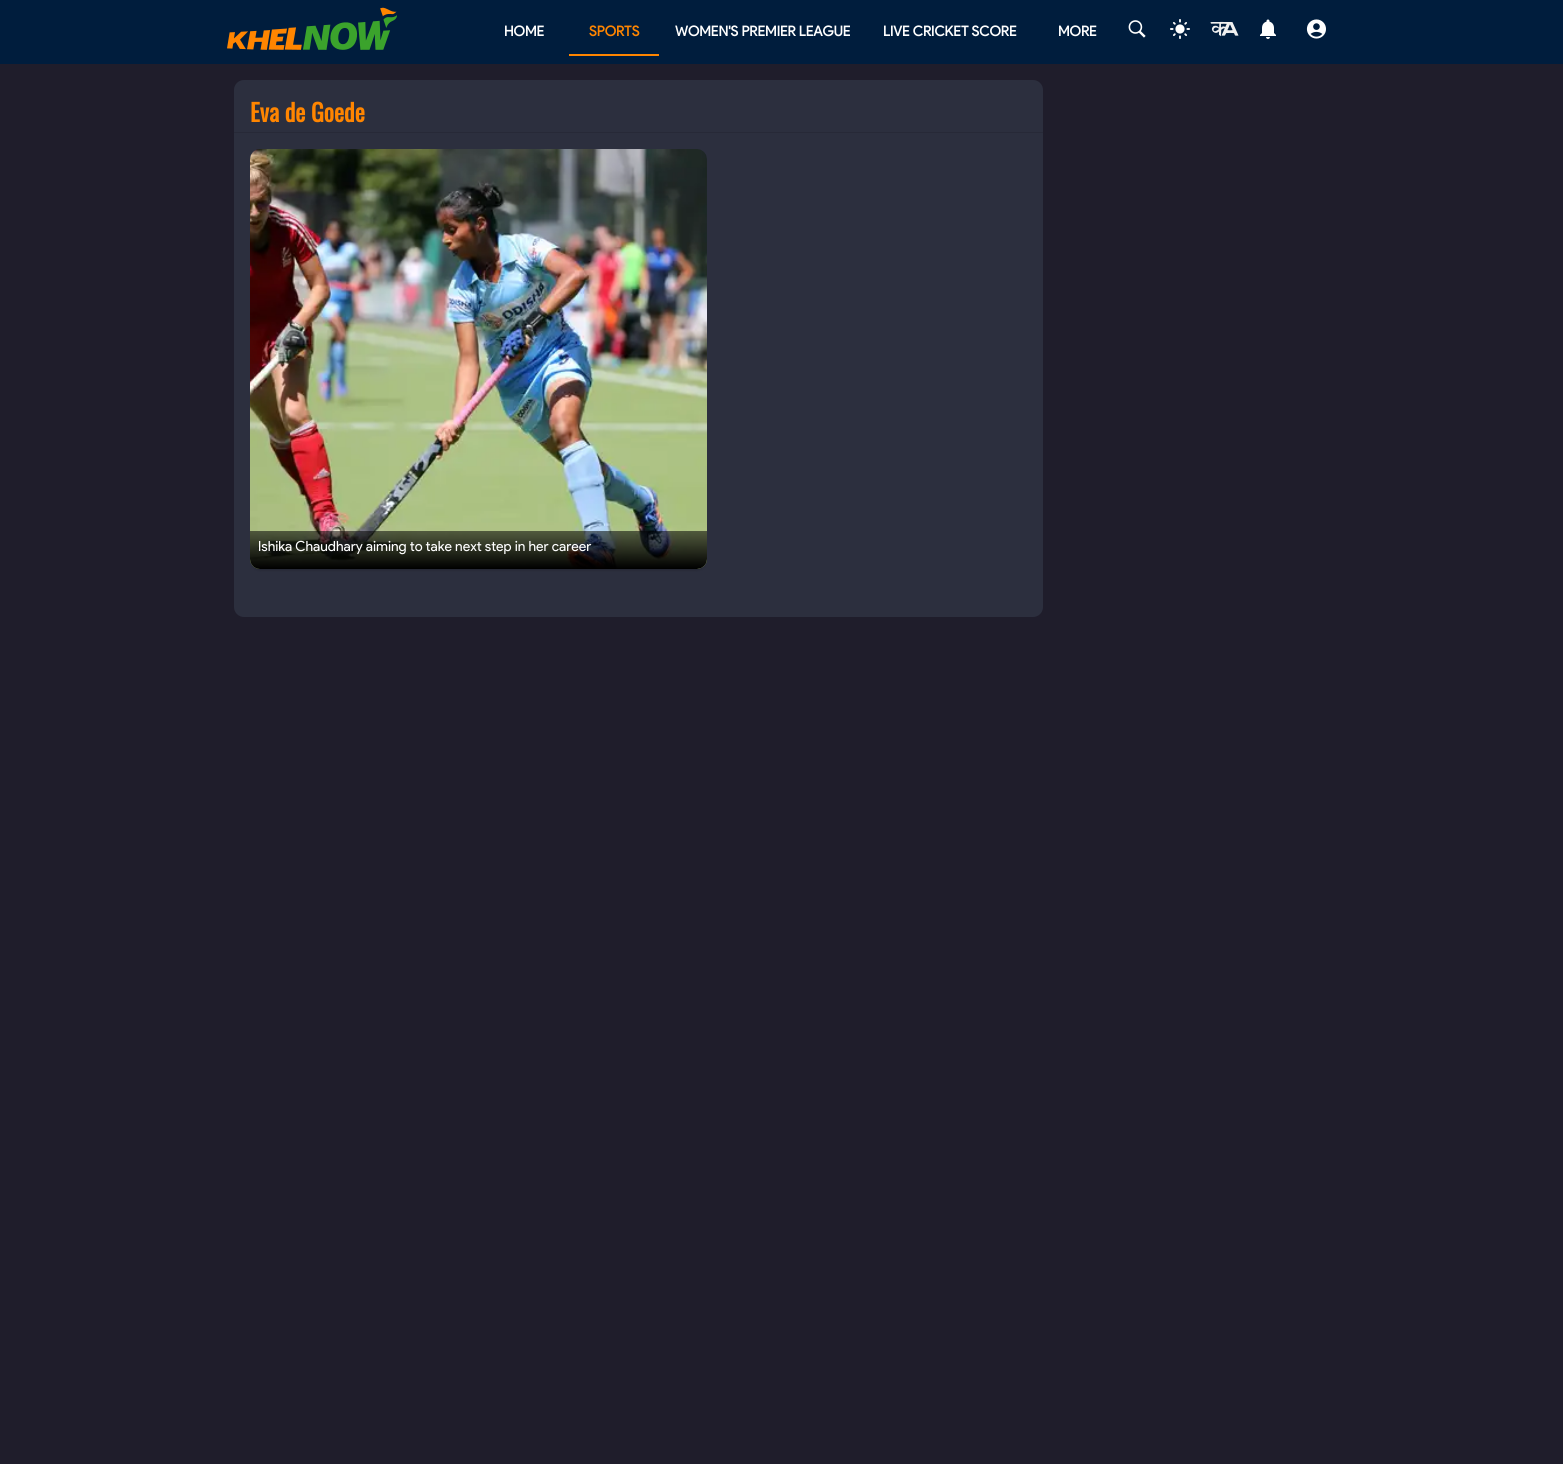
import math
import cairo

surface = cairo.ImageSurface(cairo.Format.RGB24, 1563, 1464)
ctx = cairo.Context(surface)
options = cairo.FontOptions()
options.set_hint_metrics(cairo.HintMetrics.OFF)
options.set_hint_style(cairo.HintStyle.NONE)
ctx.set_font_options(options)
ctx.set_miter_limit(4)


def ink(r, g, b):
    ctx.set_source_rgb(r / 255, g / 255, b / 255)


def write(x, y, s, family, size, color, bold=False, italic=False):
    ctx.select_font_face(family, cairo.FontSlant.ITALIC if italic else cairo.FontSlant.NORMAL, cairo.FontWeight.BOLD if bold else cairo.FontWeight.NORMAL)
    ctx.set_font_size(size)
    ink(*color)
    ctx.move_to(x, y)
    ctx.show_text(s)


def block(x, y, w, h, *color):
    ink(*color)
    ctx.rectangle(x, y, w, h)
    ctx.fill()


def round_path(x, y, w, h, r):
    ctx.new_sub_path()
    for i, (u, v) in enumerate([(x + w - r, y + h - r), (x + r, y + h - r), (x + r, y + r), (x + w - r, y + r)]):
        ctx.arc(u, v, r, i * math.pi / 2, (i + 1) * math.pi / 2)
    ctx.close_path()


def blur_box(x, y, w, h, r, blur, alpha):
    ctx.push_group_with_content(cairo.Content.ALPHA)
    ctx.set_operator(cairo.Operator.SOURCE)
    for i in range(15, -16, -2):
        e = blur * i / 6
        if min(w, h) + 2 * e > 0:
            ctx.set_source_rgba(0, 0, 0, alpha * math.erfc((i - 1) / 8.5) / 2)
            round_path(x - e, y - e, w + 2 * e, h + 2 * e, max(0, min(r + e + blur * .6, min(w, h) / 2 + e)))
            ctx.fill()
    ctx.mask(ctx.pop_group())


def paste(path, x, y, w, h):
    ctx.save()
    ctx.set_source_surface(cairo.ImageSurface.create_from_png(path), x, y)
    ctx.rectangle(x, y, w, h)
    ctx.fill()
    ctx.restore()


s1 = dict(family="Product Sans", size=14, color=(255, 255, 255), bold=True)
s2 = dict(family="Product Sans", size=14, color=(255, 133, 0), bold=True)
s3 = dict(family="Oswald", size=24, color=(255, 133, 0), bold=True)
s4 = dict(family="Product Sans", size=14, color=(255, 255, 255))

ink(31, 29, 43)
ctx.paint()
block(0, 0, 1563, 64, 0, 29, 61)
paste("pic1.png", 227, 7, 170, 43)
write(504, 36, "HOME", **s1)
write(589, 36, "SPORTS", **s2)
block(569, 54, 90, 2, 255, 133, 0)
write(675, 36, "WOMEN'S PREMIER LEAGUE", **s1)
write(883, 36, "LIVE CRICKET SCORE", **s1)
write(1058, 36, "MORE", **s1)
paste("pic2.png", 1128, 20, 18, 18)
paste("pic3.png", 1170, 19, 20, 20)
paste("pic4.png", 1210, 21, 29, 16)
paste("pic5.png", 1260, 19, 16, 20)
paste("pic6.png", 1306, 19, 20, 20)
ink(44, 47, 62)
round_path(234, 80, 809, 537, 10)
ctx.fill()
write(250, 122, "Eva de Goede", **s3)
block(234, 132, 809, 1, 39, 41, 55)
ink(0, 0, 0)
blur_box(252, 154, 453, 416, 8, 1.5, 0.2)
ink(44, 47, 62)
round_path(250, 149, 457, 420, 10)
ctx.fill()
paste("pic7.png", 250, 149, 457, 420)
paste("pic8.png", 250, 531, 457, 38)
write(258, 551, "Ishika Chaudhary aiming to take next step in her career", **s4)
surface.write_to_png("screenshot.png")
